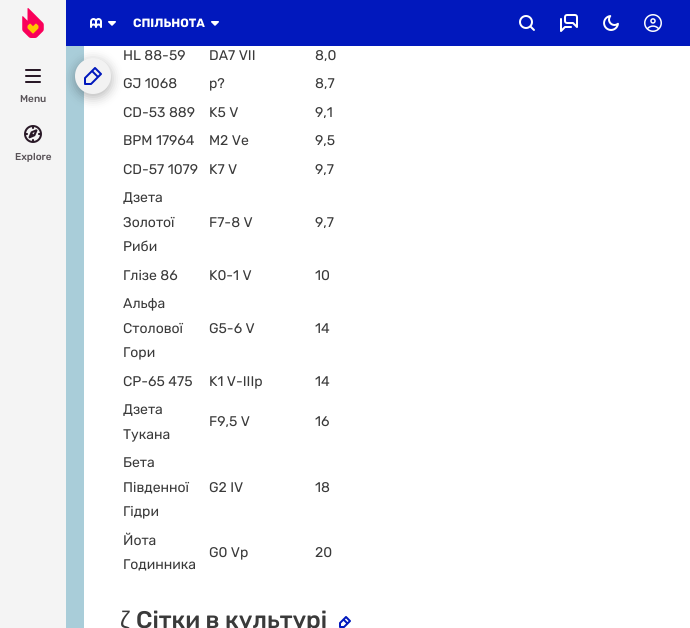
import math
import cairo

surface = cairo.ImageSurface(cairo.Format.RGB24, 690, 628)
ctx = cairo.Context(surface)
options = cairo.FontOptions()
options.set_hint_metrics(cairo.HintMetrics.OFF)
options.set_hint_style(cairo.HintStyle.NONE)
ctx.set_font_options(options)
ctx.set_miter_limit(4)


def ink(r, g, b):
    ctx.set_source_rgb(r / 255, g / 255, b / 255)


def write(x, y, s, family, size, color, bold=False, italic=False):
    ctx.select_font_face(family, cairo.FontSlant.ITALIC if italic else cairo.FontSlant.NORMAL, cairo.FontWeight.BOLD if bold else cairo.FontWeight.NORMAL)
    ctx.set_font_size(size)
    ink(*color)
    ctx.move_to(x, y)
    ctx.show_text(s)


def block(x, y, w, h, *color):
    ink(*color)
    ctx.rectangle(x, y, w, h)
    ctx.fill()


def round_path(x, y, w, h, r):
    ctx.new_sub_path()
    for i, (u, v) in enumerate([(x + w - r, y + h - r), (x + r, y + h - r), (x + r, y + r), (x + w - r, y + r)]):
        ctx.arc(u, v, r, i * math.pi / 2, (i + 1) * math.pi / 2)
    ctx.close_path()


def blur_box(x, y, w, h, r, blur, alpha):
    ctx.push_group_with_content(cairo.Content.ALPHA)
    ctx.set_operator(cairo.Operator.SOURCE)
    for i in range(15, -16, -2):
        e = blur * i / 6
        if min(w, h) + 2 * e > 0:
            ctx.set_source_rgba(0, 0, 0, alpha * math.erfc((i - 1) / 8.5) / 2)
            round_path(x - e, y - e, w + 2 * e, h + 2 * e, max(0, min(r + e + blur * .6, min(w, h) / 2 + e)))
            ctx.fill()
    ctx.mask(ctx.pop_group())


def paste(path, x, y, w, h):
    ctx.save()
    ctx.set_source_surface(cairo.ImageSurface.create_from_png(path), x, y)
    ctx.rectangle(x, y, w, h)
    ctx.fill()
    ctx.restore()


s1 = dict(family="Rubik", size=12, color=(255, 255, 255), bold=True)
s2 = dict(family="Rubik Medium", size=10, color=(89, 83, 88))
s3 = dict(family="Rubik", size=14, color=(58, 58, 58))
s4 = dict(family="Liberation Sans", size=24, color=(58, 58, 58))
s5 = dict(family="Rubik Medium", size=24, color=(58, 58, 58))

ink(169, 205, 217)
ctx.paint()
block(84, 46, 606, 582, 255, 255, 255)
ink(0, 0, 0)
blur_box(75, 61, 36, 36, 18, 6, 0.3)
block(66, 0, 624, 46, 1, 24, 189)
block(0, 0, 66, 628, 244, 244, 244)
paste("pic1.png", 22, 8, 22, 30)
paste("pic2.png", 90, 18, 12, 10)
paste("pic3.png", 108, 21, 8, 5)
write(133, 27, "СПІЛЬНОТА", **s1)
paste("pic3.png", 211, 21, 8, 5)
paste("pic4.png", 519, 15, 16, 16)
paste("pic5.png", 560, 14, 18, 18)
paste("pic6.png", 603, 15, 16, 16)
paste("pic7.png", 644, 14, 18, 18)
paste("pic8.png", 25, 69, 16, 14)
write(20, 102, "Menu", **s2)
paste("pic9.png", 24, 125, 18, 18)
write(15, 160, "Explore", **s2)
ink(242, 242, 242)
ctx.new_path()
ctx.arc(93, 76, 18, 0, 2 * math.pi)
ctx.fill()
paste("pic10.png", 84, 67, 18, 18)
write(123, 60, "HL 88-59", **s3)
write(209, 60, "DA7 VII", **s3)
write(315, 60, "8,0", **s3)
write(123, 88, "GJ 1068", **s3)
write(209, 88, "p?", **s3)
write(315, 88, "8,7", **s3)
write(123, 117, "CD-53 889", **s3)
write(209, 117, "K5 V", **s3)
write(315, 117, "9,1", **s3)
write(123, 145, "BPM 17964", **s3)
write(209, 145, "M2 Ve", **s3)
write(315, 145, "9,5", **s3)
write(123, 174, "CD-57 1079", **s3)
write(209, 174, "K7 V", **s3)
write(315, 174, "9,7", **s3)
write(123, 202, "Дзета", **s3)
write(123, 227, "Золотої", **s3)
write(123, 251, "Риби", **s3)
write(209, 227, "F7-8 V", **s3)
write(315, 227, "9,7", **s3)
write(123, 280, "Глізе 86", **s3)
write(209, 280, "K0-1 V", **s3)
write(315, 280, "10", **s3)
write(123, 308, "Альфа", **s3)
write(123, 333, "Столової", **s3)
write(123, 357, "Гори", **s3)
write(209, 333, "G5-6 V", **s3)
write(315, 333, "14", **s3)
write(123, 386, "CP-65 475", **s3)
write(209, 386, "K1 V-IIIp", **s3)
write(315, 386, "14", **s3)
write(123, 414, "Дзета", **s3)
write(123, 439, "Тукана", **s3)
write(209, 426, "F9,5 V", **s3)
write(315, 426, "16", **s3)
write(123, 467, "Бета", **s3)
write(123, 492, "Південної", **s3)
write(123, 516, "Гідри", **s3)
write(209, 492, "G2 IV", **s3)
write(315, 492, "18", **s3)
write(123, 545, "Йота", **s3)
write(123, 569, "Годинника", **s3)
write(209, 557, "G0 Vp", **s3)
write(315, 557, "20", **s3)
write(120, 628, "ζ", **s4)
write(136, 628, "Сітки в культурі", **s5)
paste("pic11.png", 339, 616, 12, 12)
surface.write_to_png("screenshot.png")
